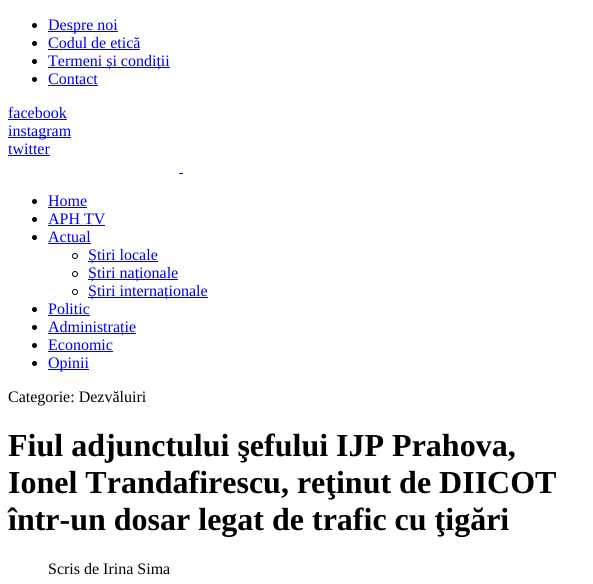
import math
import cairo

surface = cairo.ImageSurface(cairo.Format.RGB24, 593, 584)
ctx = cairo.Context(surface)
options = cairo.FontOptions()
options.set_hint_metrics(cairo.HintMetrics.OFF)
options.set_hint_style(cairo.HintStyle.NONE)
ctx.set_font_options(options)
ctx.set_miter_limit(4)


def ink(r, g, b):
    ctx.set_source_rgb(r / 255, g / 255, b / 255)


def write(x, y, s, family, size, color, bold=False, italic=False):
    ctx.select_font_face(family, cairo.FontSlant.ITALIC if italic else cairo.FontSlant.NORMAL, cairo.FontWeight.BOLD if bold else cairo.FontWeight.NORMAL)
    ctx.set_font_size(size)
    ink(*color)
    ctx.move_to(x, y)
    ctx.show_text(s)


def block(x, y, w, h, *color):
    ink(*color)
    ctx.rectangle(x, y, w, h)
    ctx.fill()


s1 = dict(family="Liberation Serif", size=16, color=(0, 0, 238))
s2 = dict(family="Liberation Serif", size=16, color=(0, 0, 0))
s3 = dict(family="Liberation Serif", size=32, color=(0, 0, 0), bold=True)

ink(255, 255, 255)
ctx.paint()
ink(0, 0, 0)
ctx.arc(34.5, 25.5, 2.5, 0, 2 * math.pi)
ctx.fill()
block(48, 31, 70, 1, 0, 0, 238)
write(48, 30, "Despre noi", **s1)
ink(0, 0, 0)
ctx.new_path()
ctx.arc(34.5, 43.5, 2.5, 0, 2 * math.pi)
ctx.fill()
write(48, 48, "Codul de etică", **s1)
block(48, 49, 92, 1, 0, 0, 238)
ink(0, 0, 0)
ctx.new_path()
ctx.arc(34.5, 61.5, 2.5, 0, 2 * math.pi)
ctx.fill()
block(48, 67, 122, 1, 0, 0, 238)
write(48, 66, "Termeni și condiții", **s1)
ink(0, 0, 0)
ctx.new_path()
ctx.arc(34.5, 79.5, 2.5, 0, 2 * math.pi)
ctx.fill()
write(48, 84, "Contact", **s1)
block(48, 85, 50, 1, 0, 0, 238)
write(8, 118, "facebook", **s1)
block(8, 119, 59, 1, 0, 0, 238)
block(8, 137, 63, 1, 0, 0, 238)
write(8, 136, "instagram", **s1)
write(8, 154, "twitter", **s1)
block(8, 155, 42, 1, 0, 0, 238)
block(179, 173, 4, 1, 0, 0, 238)
ink(0, 0, 0)
ctx.new_path()
ctx.arc(34.5, 201.5, 2.5, 0, 2 * math.pi)
ctx.fill()
write(48, 206, "Home", **s1)
block(48, 207, 39, 1, 0, 0, 238)
ink(0, 0, 0)
ctx.new_path()
ctx.arc(34.5, 219.5, 2.5, 0, 2 * math.pi)
ctx.fill()
write(48, 224, "APH TV", **s1)
block(48, 225, 57, 1, 0, 0, 238)
ink(0, 0, 0)
ctx.new_path()
ctx.arc(34.5, 237.5, 2.5, 0, 2 * math.pi)
ctx.fill()
write(48, 242, "Actual", **s1)
block(48, 243, 43, 1, 0, 0, 238)
ctx.new_path()
ctx.arc(75, 256, 2.5, 0, 2 * math.pi)
ink(0, 0, 0)
ctx.set_line_width(1)
ctx.stroke()
block(88, 261, 70, 1, 0, 0, 238)
write(88, 260, "Știri locale", **s1)
ctx.new_path()
ctx.arc(75, 274, 2.5, 0, 2 * math.pi)
ink(0, 0, 0)
ctx.stroke()
block(88, 279, 90, 1, 0, 0, 238)
write(88, 278, "Știri naționale", **s1)
ctx.new_path()
ctx.arc(75, 292, 2.5, 0, 2 * math.pi)
ink(0, 0, 0)
ctx.stroke()
block(88, 297, 120, 1, 0, 0, 238)
write(88, 296, "Știri internaționale", **s1)
ink(0, 0, 0)
ctx.new_path()
ctx.arc(34.5, 309.5, 2.5, 0, 2 * math.pi)
ctx.fill()
write(48, 314, "Politic", **s1)
block(48, 315, 42, 1, 0, 0, 238)
ink(0, 0, 0)
ctx.new_path()
ctx.arc(34.5, 327.5, 2.5, 0, 2 * math.pi)
ctx.fill()
block(48, 333, 88, 1, 0, 0, 238)
write(48, 332, "Administrație", **s1)
ink(0, 0, 0)
ctx.new_path()
ctx.arc(34.5, 345.5, 2.5, 0, 2 * math.pi)
ctx.fill()
write(48, 350, "Economic", **s1)
block(48, 351, 65, 1, 0, 0, 238)
ink(0, 0, 0)
ctx.new_path()
ctx.arc(34.5, 363.5, 2.5, 0, 2 * math.pi)
ctx.fill()
block(48, 369, 41, 1, 0, 0, 238)
write(48, 368, "Opinii", **s1)
write(8, 402, "Categorie: Dezvăluiri", **s2)
write(8, 456, "Fiul adjunctului şefului IJP Prahova,", **s3)
write(8, 493, "Ionel Trandafirescu, reţinut de DIICOT", **s3)
write(8, 530, "într-un dosar legat de trafic cu ţigări", **s3)
write(48, 574, "Scris de Irina Sima", **s2)
surface.write_to_png("screenshot.png")
